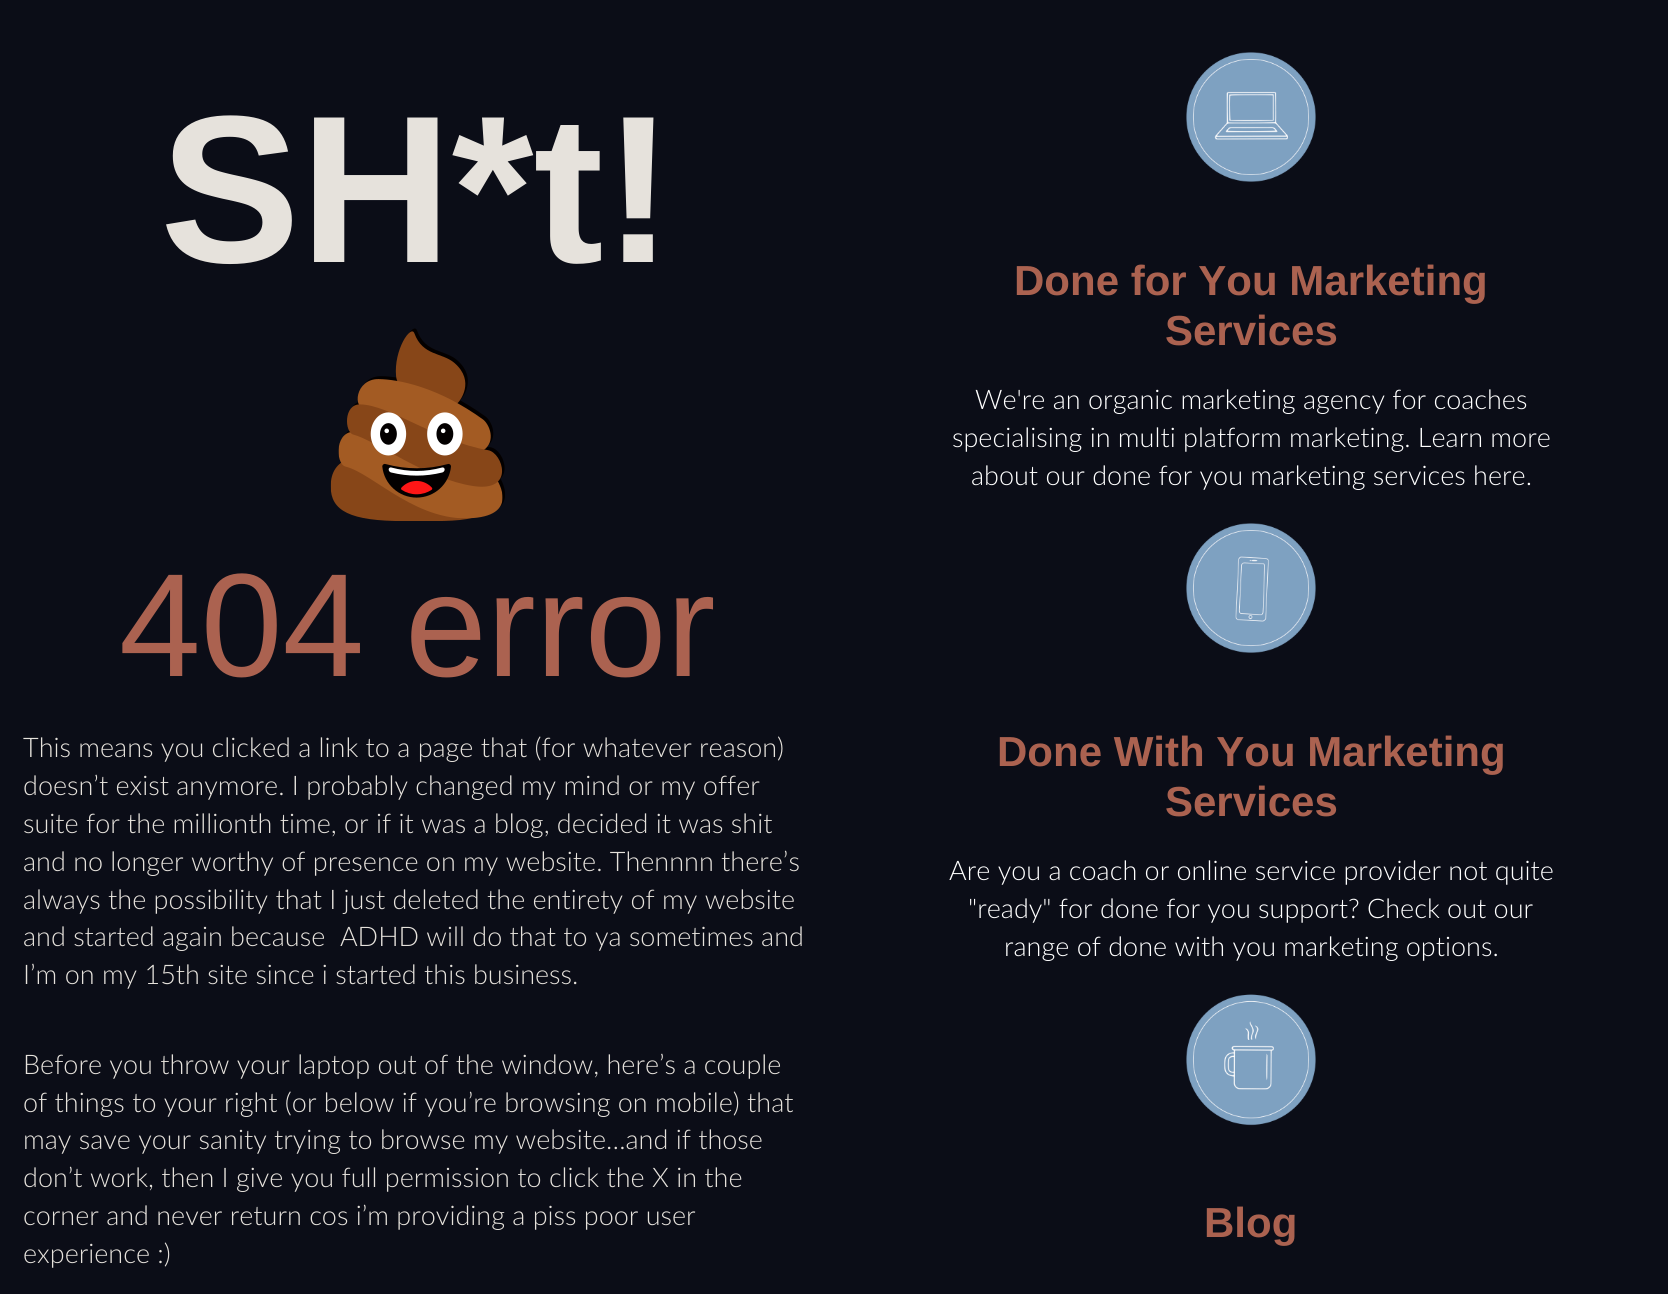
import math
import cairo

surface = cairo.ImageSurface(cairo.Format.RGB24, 1668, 1294)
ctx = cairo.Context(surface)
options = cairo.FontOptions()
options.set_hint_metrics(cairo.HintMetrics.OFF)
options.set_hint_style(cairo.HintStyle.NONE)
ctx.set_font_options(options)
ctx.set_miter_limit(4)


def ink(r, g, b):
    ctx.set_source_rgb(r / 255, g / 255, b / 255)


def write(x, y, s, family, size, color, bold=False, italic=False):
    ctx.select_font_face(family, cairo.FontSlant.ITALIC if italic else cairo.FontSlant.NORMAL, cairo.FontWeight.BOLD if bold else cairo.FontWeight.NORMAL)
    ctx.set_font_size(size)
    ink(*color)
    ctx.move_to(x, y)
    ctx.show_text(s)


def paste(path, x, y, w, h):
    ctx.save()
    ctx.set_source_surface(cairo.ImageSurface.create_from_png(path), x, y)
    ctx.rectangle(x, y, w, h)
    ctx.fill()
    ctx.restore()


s1 = dict(family="Liberation Sans", size=210, color=(230, 226, 220), bold=True)
s2 = dict(family="Liberation Sans", size=147, color=(171, 98, 80))
s3 = dict(family="Lato Light", size=27, color=(230, 226, 220))
s4 = dict(family="Liberation Sans", size=42, color=(171, 98, 80), bold=True)
s5 = dict(family="Lato Light", size=27, color=(255, 255, 255))

ink(11, 13, 23)
ctx.paint()
write(160, 262, "SH*t!", **s1)
paste("pic1.png", 330, 328, 175, 193)
write(119, 676, "404 error", **s2)
write(23, 757, "This means you clicked a link to a page that (for whatever reason)", **s3)
write(23, 795, "doesn’t exist anymore. I probably changed my mind or my offer", **s3)
write(23, 833, "suite for the millionth time, or if it was a blog, decided it was shit", **s3)
write(23, 871, "and no longer worthy of presence on my website. Thennnn there’s", **s3)
write(23, 909, "always the possibility that I just deleted the entirety of my website", **s3)
write(23, 946, "and started again because  ADHD will do that to ya sometimes and", **s3)
write(23, 984, "I’m on my 15th site since i started this business.", **s3)
write(23, 1074, "Before you throw your laptop out of the window, here’s a couple", **s3)
write(23, 1112, "of things to your right (or below if you’re browsing on mobile) that", **s3)
write(23, 1149, "may save your sanity trying to browse my website…and if those", **s3)
write(23, 1187, "don’t work, then I give you full permission to click the X in the", **s3)
write(23, 1225, "corner and never return cos i’m providing a piss poor user", **s3)
write(23, 1263, "experience :)", **s3)
paste("pic2.png", 1186, 52, 130, 130)
write(1014, 295, "Done for You Marketing", **s4)
write(1165, 345, "Services", **s4)
write(975, 409, "We're an organic marketing agency for coaches", **s5)
write(952, 447, "specialising in multi platform marketing. Learn more", **s5)
write(971, 485, "about our done for you marketing services here.", **s5)
paste("pic3.png", 1186, 523, 130, 130)
write(997, 766, "Done With You Marketing", **s4)
write(1165, 816, "Services", **s4)
write(949, 880, "Are you a coach or online service provider not quite", **s5)
write(968, 918, "\"ready\" for done for you support? Check out our", **s5)
write(1004, 956, "range of done with you marketing options.", **s5)
paste("pic4.png", 1186, 994, 130, 132)
write(1204, 1237, "Blog", **s4)
surface.write_to_png("screenshot.png")
